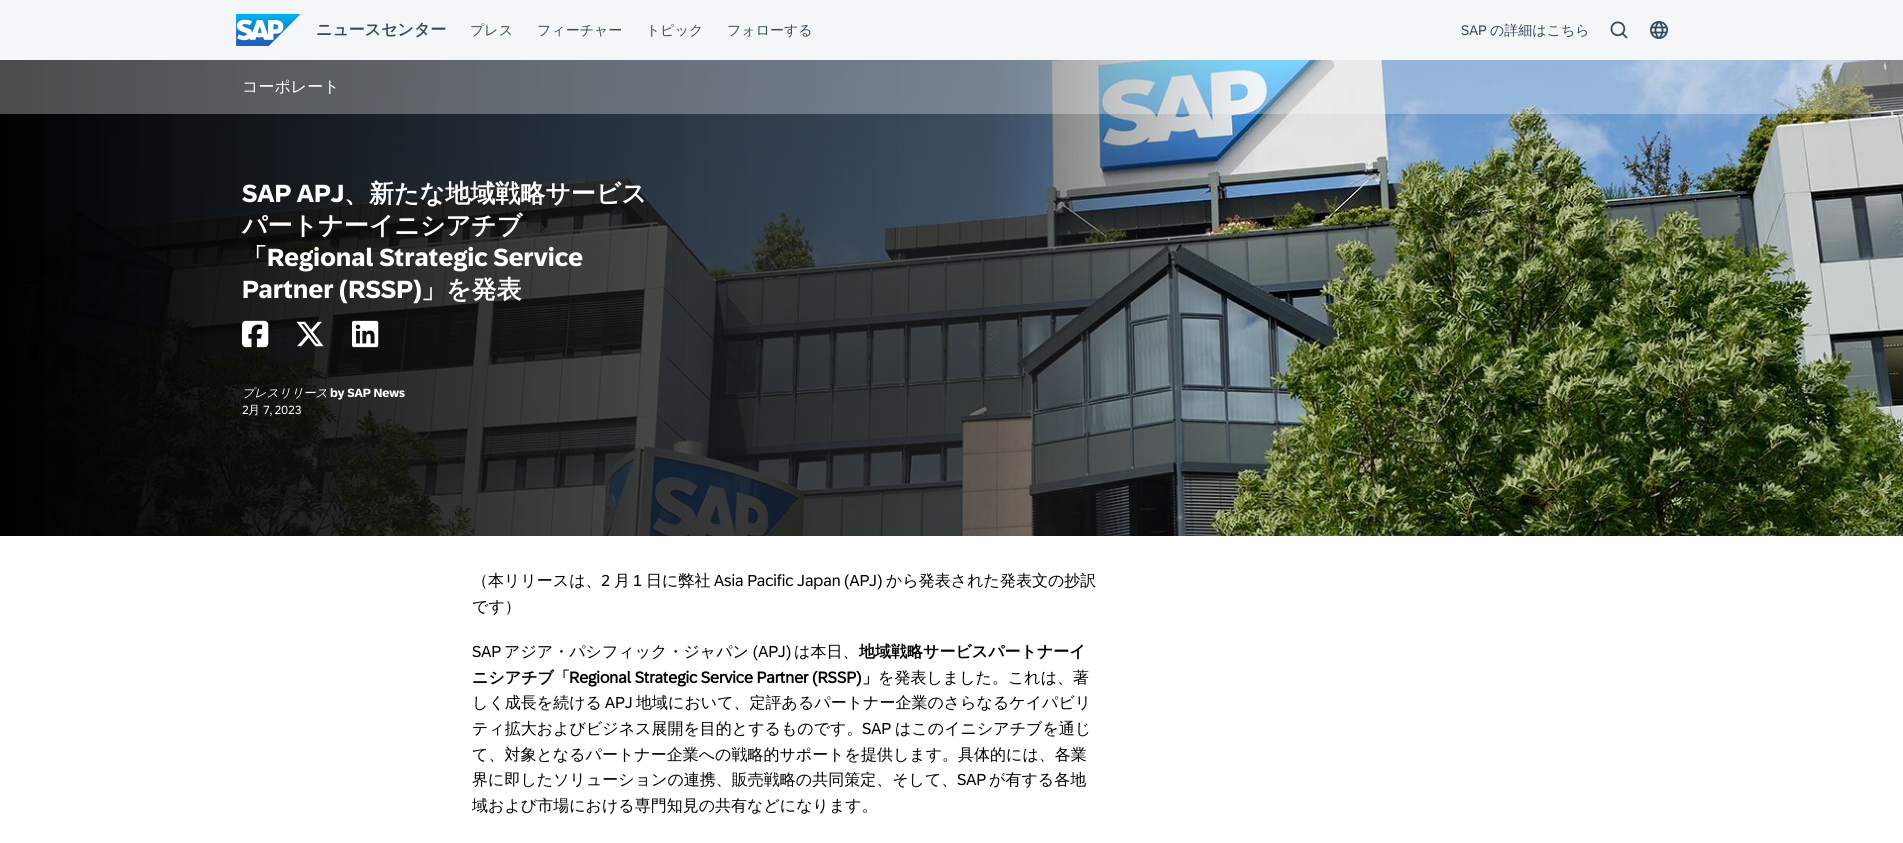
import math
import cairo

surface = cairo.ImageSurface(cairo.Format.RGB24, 1903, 843)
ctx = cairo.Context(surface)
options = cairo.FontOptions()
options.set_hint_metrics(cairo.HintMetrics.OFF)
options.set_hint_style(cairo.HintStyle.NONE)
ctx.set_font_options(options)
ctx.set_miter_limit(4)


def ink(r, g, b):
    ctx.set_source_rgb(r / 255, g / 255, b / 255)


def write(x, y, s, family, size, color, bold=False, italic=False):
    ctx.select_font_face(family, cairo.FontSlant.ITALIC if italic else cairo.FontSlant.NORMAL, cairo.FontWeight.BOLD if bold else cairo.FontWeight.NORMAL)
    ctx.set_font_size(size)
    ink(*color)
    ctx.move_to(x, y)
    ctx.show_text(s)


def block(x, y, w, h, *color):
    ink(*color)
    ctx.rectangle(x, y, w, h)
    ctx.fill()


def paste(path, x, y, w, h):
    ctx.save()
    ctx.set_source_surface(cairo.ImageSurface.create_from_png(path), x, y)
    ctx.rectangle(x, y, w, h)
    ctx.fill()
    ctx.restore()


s1 = dict(family="WenQuanYi Zen Hei", size=16, color=(53, 74, 95), bold=True)
s2 = dict(family="WenQuanYi Zen Hei Medium", size=14, color=(53, 74, 95))
s3 = dict(family="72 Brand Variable", size=14, color=(53, 74, 95))
s4 = dict(family="WenQuanYi Zen Hei Medium", size=16, color=(255, 255, 255))
s5 = dict(family="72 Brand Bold", size=25, color=(255, 255, 255), bold=True)
s6 = dict(family="WenQuanYi Zen Hei", size=25, color=(255, 255, 255), bold=True)
s7 = dict(family="WenQuanYi Zen Hei Medium", size=12, color=(255, 255, 255), italic=True)
s8 = dict(family="72 Brand Bold", size=12, color=(255, 255, 255), bold=True)
s9 = dict(family="72 Brand Variable", size=12, color=(255, 255, 255))
s10 = dict(family="WenQuanYi Zen Hei Medium", size=12, color=(255, 255, 255))
s11 = dict(family="WenQuanYi Zen Hei Medium", size=16, color=(0, 0, 0))
s12 = dict(family="72 Brand Variable", size=16, color=(0, 0, 0))
s13 = dict(family="WenQuanYi Zen Hei", size=16, color=(0, 0, 0), bold=True)
s14 = dict(family="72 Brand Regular", size=16, color=(0, 0, 0), bold=True)

ink(245, 246, 247)
ctx.paint()
paste("pic1.png", 236, 14, 64, 32)
write(316, 35, "ニュースセンター", **s1)
write(470, 35, "プレス", **s2)
write(537, 35, "フィーチャー", **s2)
write(646, 35, "トピック", **s2)
write(727, 35, "フォローする", **s2)
write(1461, 35, "SAP", **s3)
write(1490, 35, "の詳細はこちら", **s2)
paste("pic2.png", 1610, 21, 18, 18)
paste("pic3.png", 1650, 21, 18, 18)
paste("pic4.png", 0, 60, 1903, 476)
ctx.set_source_rgba(1, 1, 1, 0.3)
ctx.rectangle(0, 60, 1903, 54)
ctx.fill()
write(242, 92, "コーポレート", **s4)
write(242, 202, "SAP APJ", **s5)
write(344, 202, "、新たな地域戦略サービス", **s6)
write(242, 234, "パートナーイニシアチブ", **s6)
write(242, 266, "「", **s6)
write(267, 266, "Regional Strategic Service", **s5)
write(242, 298, "Partner (RSSP)", **s5)
write(421, 298, "」を発表", **s6)
paste("pic5.png", 242, 320, 27, 28)
paste("pic6.png", 296, 321, 28, 26)
paste("pic7.png", 352, 320, 27, 28)
write(242, 397, "プレスリリース", **s7)
write(330, 397, "by SAP News", **s8)
write(242, 414, "2", **s9)
write(248, 414, "月", **s10)
write(263, 414, "7, 2023", **s9)
block(0, 536, 1903, 307, 255, 255, 255)
write(472, 586, "（本リリースは、", **s11)
write(601, 586, "2", **s12)
write(614, 586, "月", **s11)
write(633, 586, "1", **s12)
write(646, 586, "日に弊社", **s11)
write(714, 586, "Asia Pacific Japan (APJ)", **s12)
write(886, 586, "から発表された発表文の抄訳", **s11)
write(472, 612, "です）", **s11)
write(472, 657, "SAP", **s12)
write(504, 657, "アジア・パシフィック・ジャパン", **s11)
write(753, 657, "(APJ)", **s12)
write(794, 657, "は本日、", **s11)
write(859, 657, "地域戦略サービスパートナーイ", **s13)
write(472, 683, "ニシアチブ「", **s13)
write(569, 683, "Regional Strategic Service Partner (RSSP)", **s14)
write(862, 683, "」", **s13)
write(878, 683, "を発表しました。これは、著", **s11)
write(472, 708, "しく成長を続ける", **s11)
write(605, 708, "APJ", **s12)
write(636, 708, "地域において、定評あるパートナー企業のさらなるケイパビリ", **s11)
write(472, 734, "ティ拡大およびビジネス展開を目的とするものです。", **s11)
write(862, 734, "SAP", **s12)
write(895, 734, "はこのイニシアチブを通じ", **s11)
write(472, 760, "て、対象となるパートナー企業への戦略的サポートを提供します。具体的には、各業", **s11)
write(472, 785, "界に即したソリューションの連携、販売戦略の共同策定、そして、", **s11)
write(957, 785, "SAP", **s12)
write(989, 785, "が有する各地", **s11)
write(472, 811, "域および市場における専門知見の共有などになります。", **s11)
surface.write_to_png("screenshot.png")
